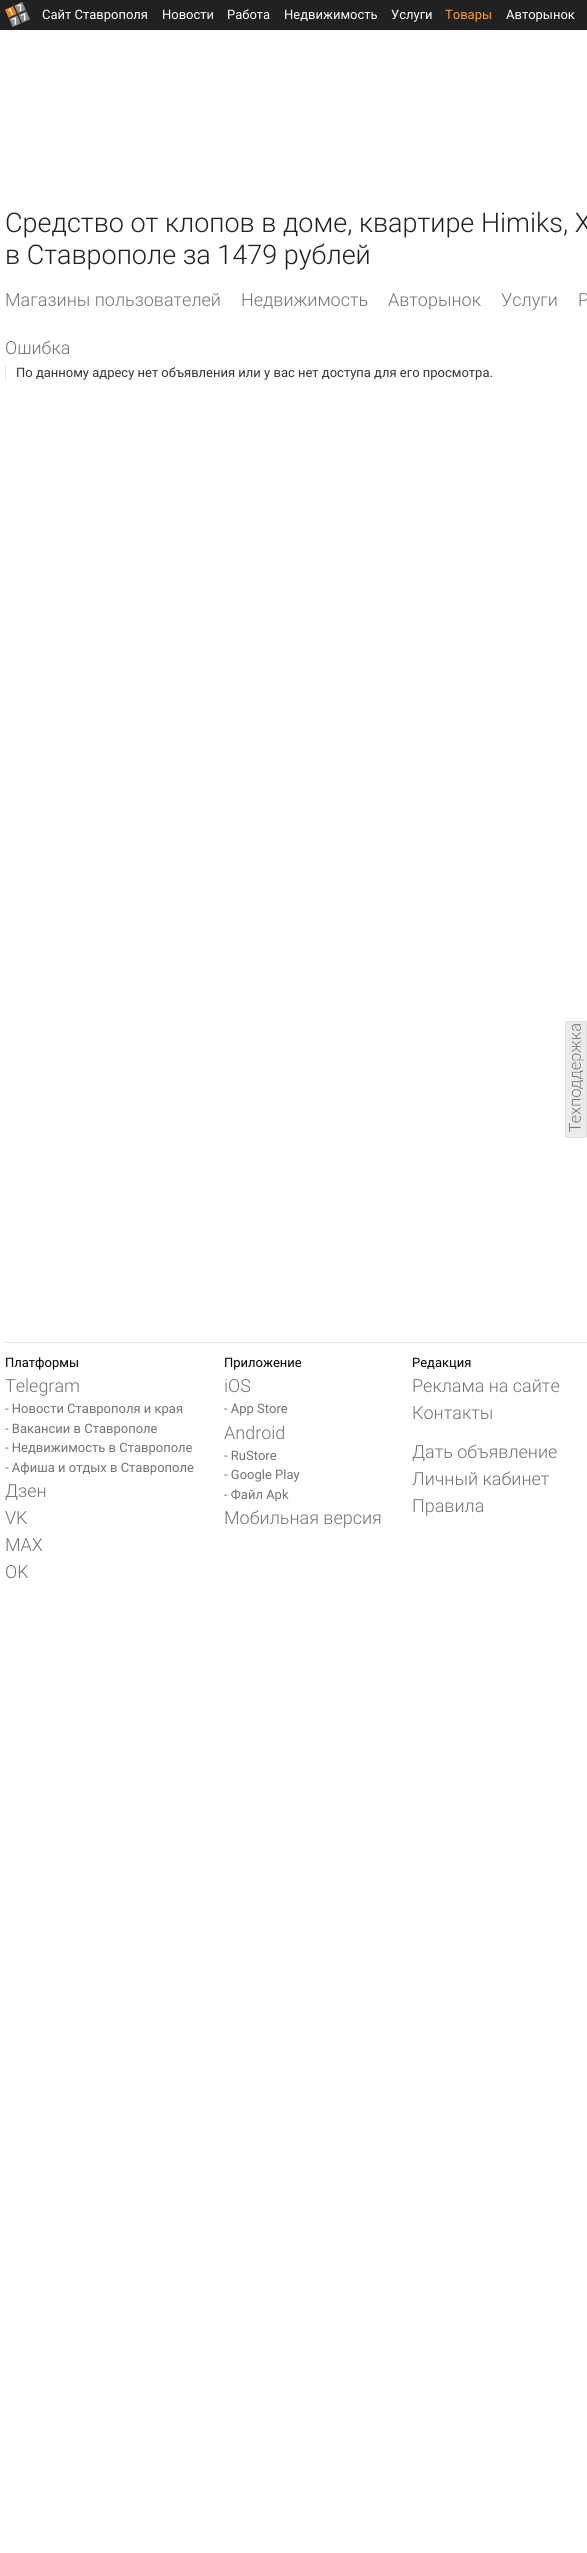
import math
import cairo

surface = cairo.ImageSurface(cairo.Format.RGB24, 587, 2553)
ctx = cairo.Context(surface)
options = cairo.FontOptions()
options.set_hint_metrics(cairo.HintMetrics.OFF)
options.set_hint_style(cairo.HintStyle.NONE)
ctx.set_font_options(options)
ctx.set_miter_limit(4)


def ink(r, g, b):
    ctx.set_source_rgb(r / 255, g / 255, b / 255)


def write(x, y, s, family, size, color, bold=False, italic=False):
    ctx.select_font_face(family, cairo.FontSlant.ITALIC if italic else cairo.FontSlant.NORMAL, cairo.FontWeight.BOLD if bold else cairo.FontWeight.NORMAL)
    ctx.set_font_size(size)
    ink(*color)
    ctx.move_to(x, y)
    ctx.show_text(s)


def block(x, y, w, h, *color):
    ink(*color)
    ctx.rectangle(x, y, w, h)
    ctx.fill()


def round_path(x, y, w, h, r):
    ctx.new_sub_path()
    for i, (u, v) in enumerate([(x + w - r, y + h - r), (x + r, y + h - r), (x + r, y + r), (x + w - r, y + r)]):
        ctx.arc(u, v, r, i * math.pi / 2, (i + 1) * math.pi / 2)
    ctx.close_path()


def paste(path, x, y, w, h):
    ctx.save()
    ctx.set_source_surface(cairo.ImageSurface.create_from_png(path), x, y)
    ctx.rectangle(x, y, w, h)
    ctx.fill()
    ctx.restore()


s1 = dict(family="Roboto", size=13, color=(255, 255, 255))
s2 = dict(family="Roboto", size=13, color=(255, 153, 51))
s3 = dict(family="Roboto Light", size=27, color=(33, 33, 33))
s4 = dict(family="Roboto Light", size=18, color=(114, 114, 114))
s5 = dict(family="Roboto", size=13, color=(51, 51, 51))
s6 = dict(family="Roboto", size=13, color=(0, 0, 0))
s7 = dict(family="Roboto", size=13, color=(114, 114, 114))

ink(255, 255, 255)
ctx.paint()
block(0, 0, 587, 30, 33, 33, 33)
paste("pic1.png", 5, 2, 25, 25)
write(42, 19, "Сайт Ставрополя", **s1)
write(162, 19, "Новости", **s1)
write(227, 19, "Работа", **s1)
write(284, 19, "Недвижимость", **s1)
write(391, 19, "Услуги", **s1)
write(445, 19, "Товары", **s2)
write(506, 19, "Авторынок", **s1)
write(5, 232, "Средство от клопов в доме, квартире Himiks, Х", **s3)
write(5, 264, "в Ставрополе за 1479 рублей", **s3)
write(5, 306, "Магазины пользователей", **s4)
write(241, 306, "Недвижимость", **s4)
write(388, 306, "Авторынок", **s4)
write(501, 306, "Услуги", **s4)
write(578, 306, "Р", **s4)
write(5, 354, "Ошибка", **s4)
block(5, 365, 1, 15, 230, 230, 230)
write(16, 377, "По данному адресу нет объявления или у вас нет доступа для его просмотра.", **s5)
ink(236, 236, 236)
round_path(565.5, 1021.5, 21, 116, 1.5)
ctx.fill_preserve()
ink(222, 222, 222)
ctx.set_line_width(1)
ctx.stroke()
paste("pic2.png", 569, 1024, 15, 109)
block(5, 1342, 582, 1, 230, 230, 230)
write(5, 1367, "Платформы", **s6)
write(5, 1392, "Telegram", **s4)
write(5, 1413, "- Новости Ставрополя и края", **s7)
write(5, 1433, "- Вакансии в Ставрополе", **s7)
write(5, 1452, "- Недвижимость в Ставрополе", **s7)
write(5, 1472, "- Афиша и отдых в Ставрополе", **s7)
write(5, 1497, "Дзен", **s4)
write(5, 1524, "VK", **s4)
write(5, 1551, "MAX", **s4)
write(5, 1578, "OK", **s4)
write(224, 1367, "Приложение", **s6)
write(224, 1392, "iOS", **s4)
write(224, 1413, "- App Store", **s7)
write(224, 1439, "Android", **s4)
write(224, 1460, "- RuStore", **s7)
write(224, 1479, "- Google Play", **s7)
write(224, 1499, "- Файл Apk", **s7)
write(224, 1524, "Мобильная версия", **s4)
write(412, 1367, "Редакция", **s6)
write(412, 1392, "Реклама на сайте", **s4)
write(412, 1419, "Контакты", **s4)
write(412, 1458, "Дать объявление", **s4)
write(412, 1485, "Личный кабинет", **s4)
write(412, 1512, "Правила", **s4)
surface.write_to_png("screenshot.png")
